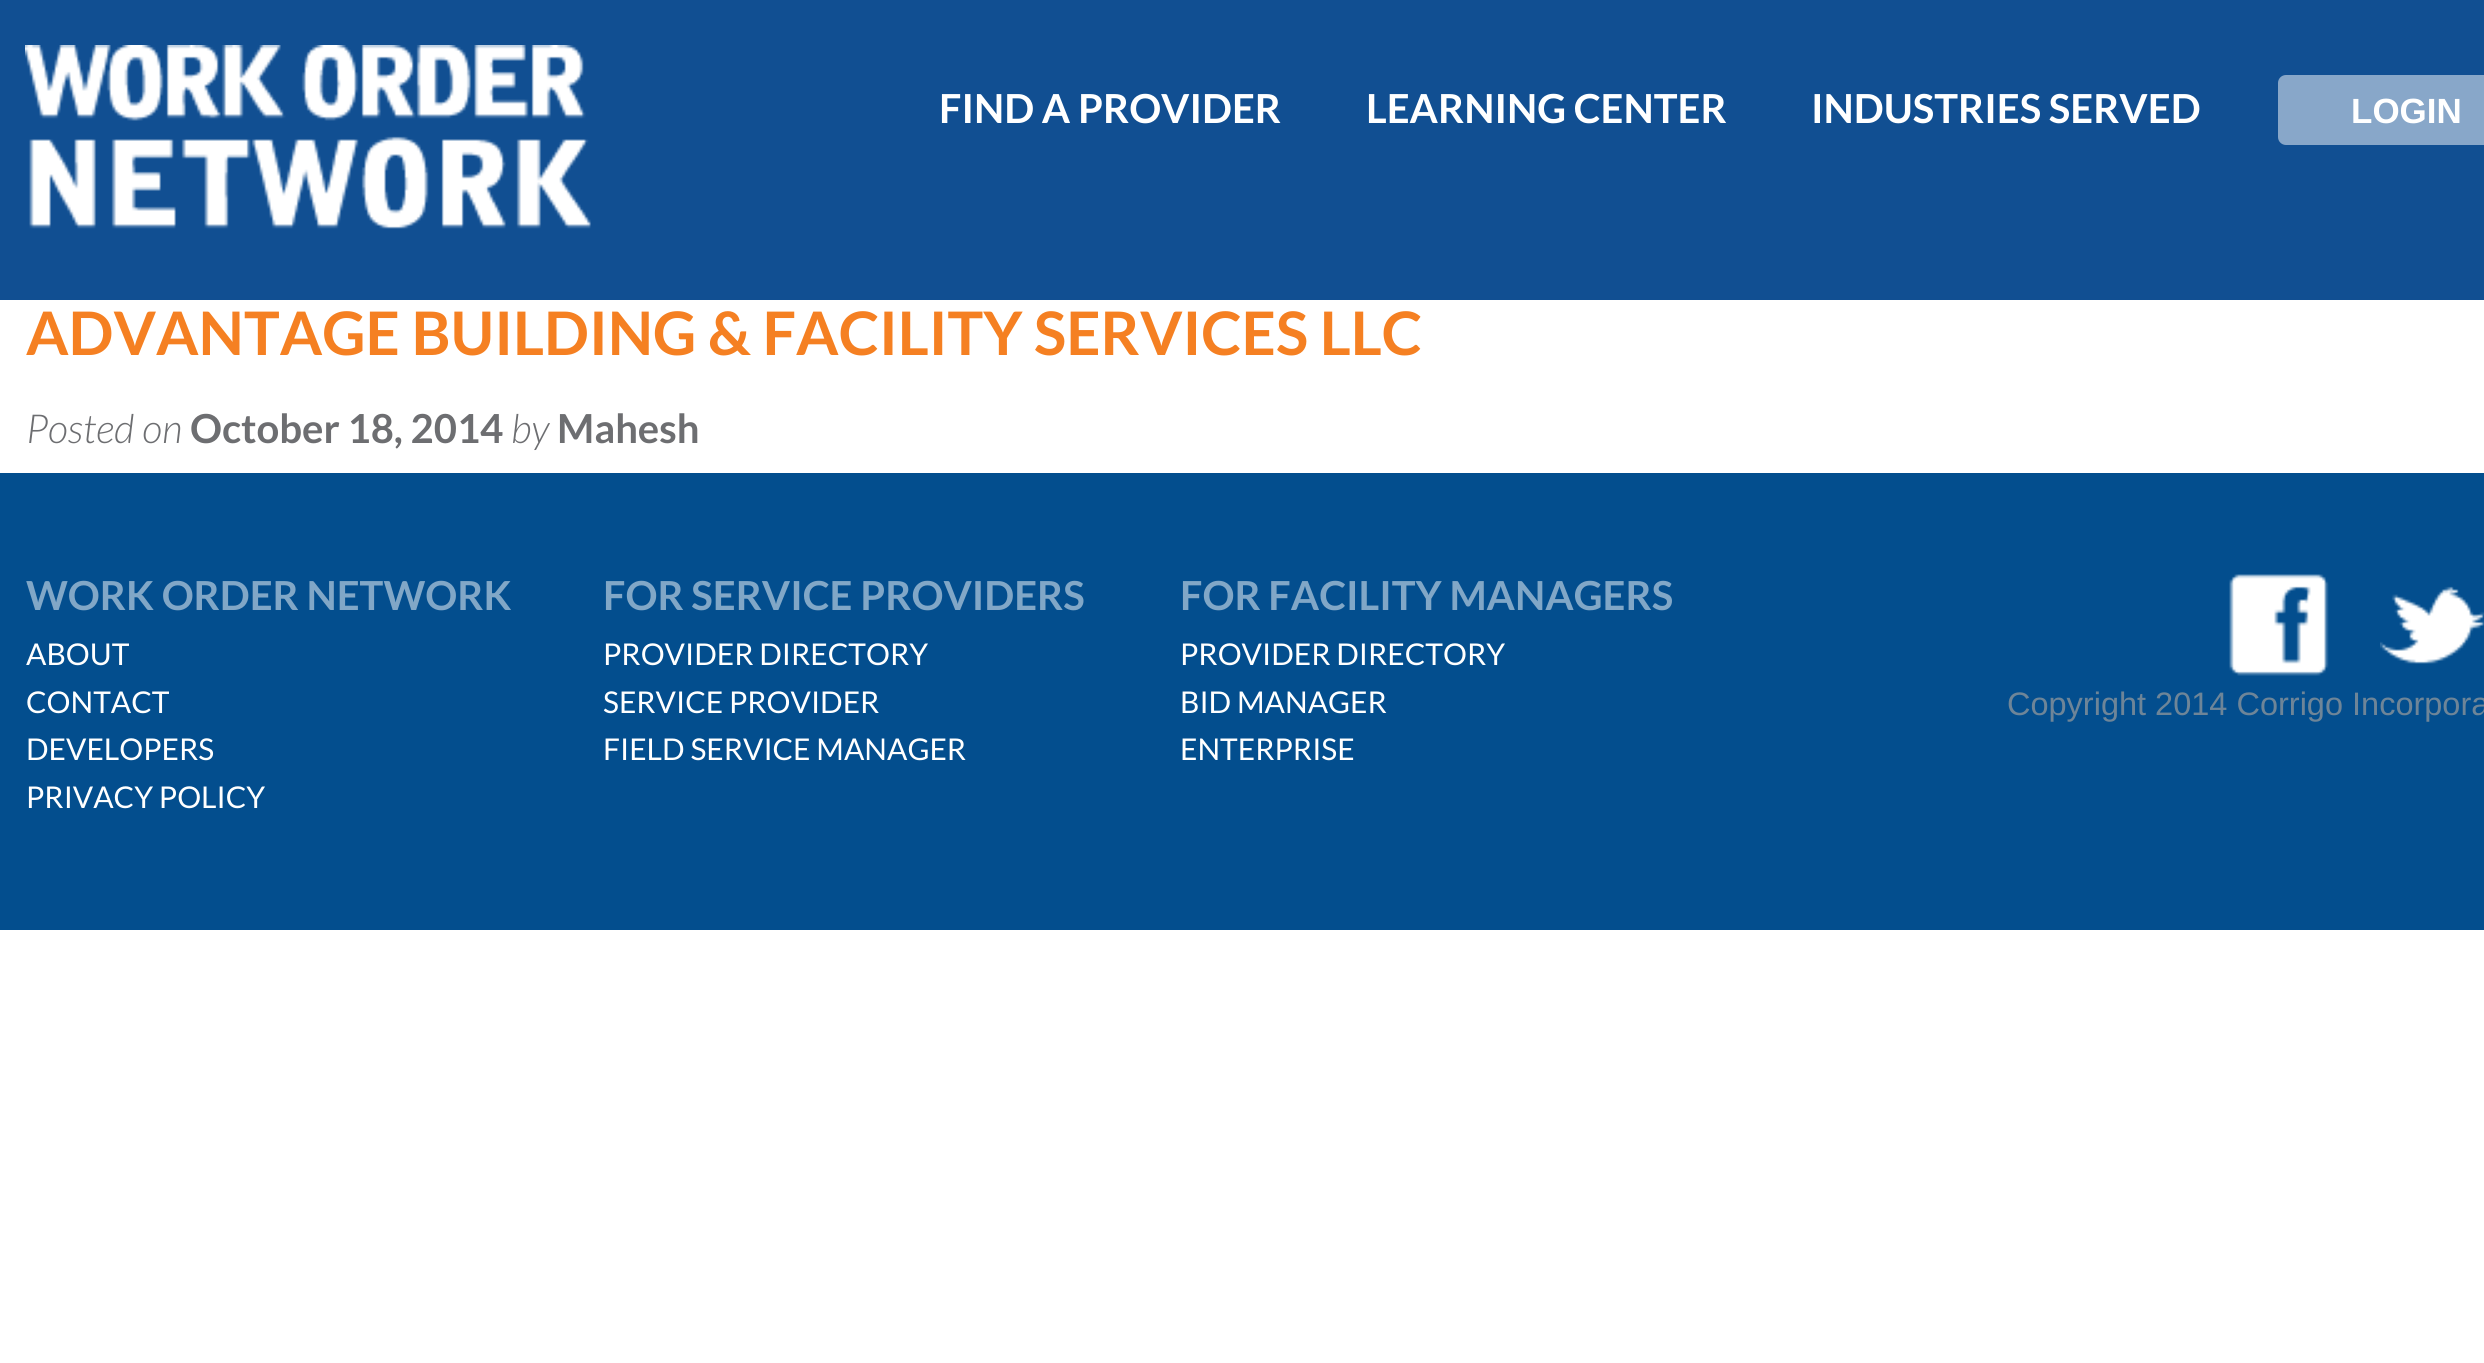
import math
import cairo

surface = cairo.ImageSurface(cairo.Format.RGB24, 2484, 1363)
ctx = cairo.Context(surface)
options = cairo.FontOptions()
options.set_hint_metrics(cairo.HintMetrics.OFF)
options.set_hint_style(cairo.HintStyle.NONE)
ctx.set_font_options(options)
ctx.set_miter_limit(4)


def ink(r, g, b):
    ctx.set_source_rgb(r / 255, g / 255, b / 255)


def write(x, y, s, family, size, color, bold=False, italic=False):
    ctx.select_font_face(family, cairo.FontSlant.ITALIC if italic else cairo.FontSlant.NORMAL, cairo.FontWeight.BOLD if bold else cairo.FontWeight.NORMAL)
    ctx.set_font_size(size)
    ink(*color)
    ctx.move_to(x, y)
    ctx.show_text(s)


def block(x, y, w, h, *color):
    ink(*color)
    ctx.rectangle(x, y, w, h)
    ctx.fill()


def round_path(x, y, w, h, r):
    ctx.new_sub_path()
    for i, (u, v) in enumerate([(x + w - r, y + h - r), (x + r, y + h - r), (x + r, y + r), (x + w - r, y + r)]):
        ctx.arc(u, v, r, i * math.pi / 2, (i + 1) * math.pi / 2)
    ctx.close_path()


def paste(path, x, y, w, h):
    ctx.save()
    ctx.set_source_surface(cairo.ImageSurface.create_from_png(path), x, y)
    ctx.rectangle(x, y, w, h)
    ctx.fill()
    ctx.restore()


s1 = dict(family="Lato", size=40, color=(255, 255, 255), bold=True)
s2 = dict(family="Liberation Sans", size=35, color=(255, 255, 255), bold=True)
s3 = dict(family="Lato", size=60, color=(245, 128, 34), bold=True)
s4 = dict(family="Lato Light", size=40, color=(109, 110, 113), italic=True)
s5 = dict(family="Lato", size=40, color=(109, 110, 113), bold=True)
s6 = dict(family="Lato", size=40, color=(129, 167, 199), bold=True)
s7 = dict(family="Lato", size=30, color=(255, 255, 255))
s8 = dict(family="Liberation Sans", size=32.5, color=(110, 133, 152))

ink(255, 255, 255)
ctx.paint()
block(0, 0, 2484, 300, 17, 79, 146)
paste("pic1.png", 25, 45, 566, 184)
write(939, 123, "FIND A PROVIDER", **s1)
write(1366, 123, "LEARNING CENTER", **s1)
write(1811, 123, "INDUSTRIES SERVED", **s1)
ink(136, 167, 201)
round_path(2278, 75, 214, 70, 8)
ctx.fill()
write(2351, 123, "LOGIN", **s2)
write(26, 355, "ADVANTAGE BUILDING & FACILITY SERVICES LLC", **s3)
write(26, 443, "Posted on", **s4)
write(190, 443, "October 18, 2014", **s5)
write(511, 443, "by", **s4)
write(557, 443, "Mahesh", **s5)
block(0, 473, 2484, 457, 3, 78, 142)
write(26, 610, "WORK ORDER NETWORK", **s6)
write(26, 665, "ABOUT", **s7)
write(26, 713, "CONTACT", **s7)
write(26, 760, "DEVELOPERS", **s7)
write(26, 808, "PRIVACY POLICY", **s7)
write(603, 610, "FOR SERVICE PROVIDERS", **s6)
write(603, 665, "PROVIDER DIRECTORY", **s7)
write(603, 713, "SERVICE PROVIDER", **s7)
write(603, 760, "FIELD SERVICE MANAGER", **s7)
write(1180, 610, "FOR FACILITY MANAGERS", **s6)
write(1180, 665, "PROVIDER DIRECTORY", **s7)
write(1180, 713, "BID MANAGER", **s7)
write(1180, 760, "ENTERPRISE", **s7)
paste("pic2.png", 2229, 574, 100, 102)
paste("pic3.png", 2380, 586, 104, 78)
write(2007, 715, "Copyright 2014 Corrigo Incorpora", **s8)
surface.write_to_png("screenshot.png")
